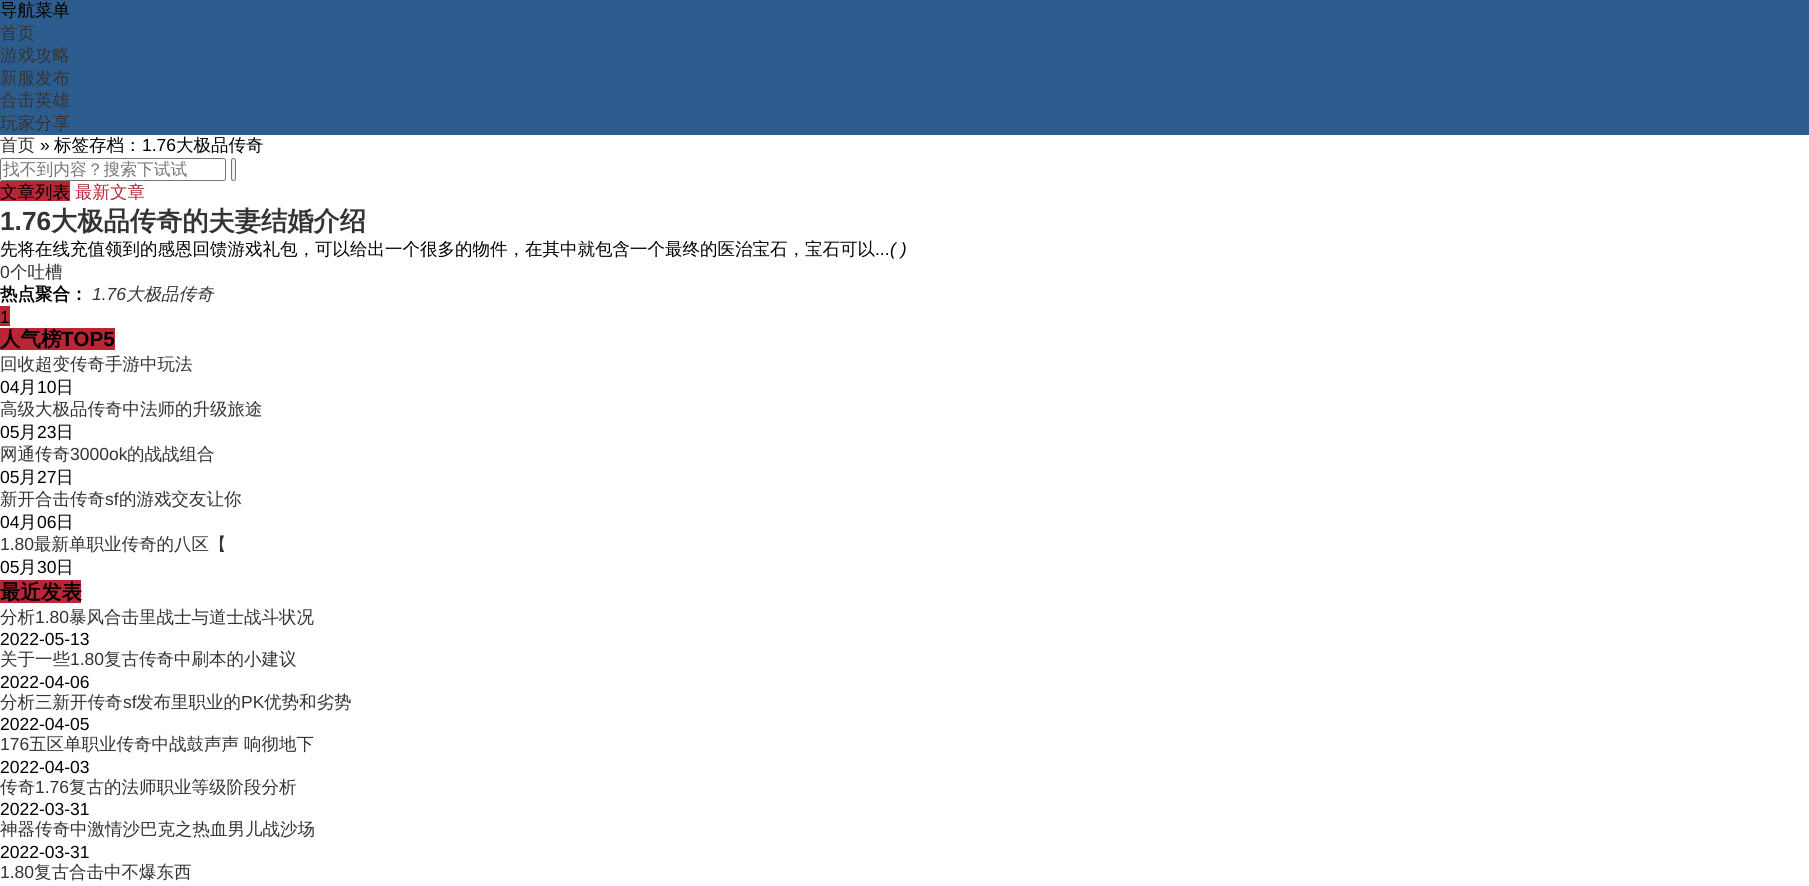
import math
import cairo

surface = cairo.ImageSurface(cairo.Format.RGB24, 1809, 886)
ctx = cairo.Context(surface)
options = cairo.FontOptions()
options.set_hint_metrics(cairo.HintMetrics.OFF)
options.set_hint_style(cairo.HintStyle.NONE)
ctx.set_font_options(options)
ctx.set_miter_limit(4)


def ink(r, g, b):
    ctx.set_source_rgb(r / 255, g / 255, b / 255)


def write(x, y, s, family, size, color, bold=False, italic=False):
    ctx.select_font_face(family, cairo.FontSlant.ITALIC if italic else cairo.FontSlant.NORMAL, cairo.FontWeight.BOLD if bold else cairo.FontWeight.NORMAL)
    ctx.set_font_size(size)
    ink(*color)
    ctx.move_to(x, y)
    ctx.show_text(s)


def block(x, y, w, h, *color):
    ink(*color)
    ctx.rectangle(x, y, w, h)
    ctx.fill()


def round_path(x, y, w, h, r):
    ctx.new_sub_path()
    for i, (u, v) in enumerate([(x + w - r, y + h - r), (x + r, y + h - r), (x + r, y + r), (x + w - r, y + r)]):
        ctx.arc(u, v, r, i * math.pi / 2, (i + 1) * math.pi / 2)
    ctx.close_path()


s1 = dict(family="WenQuanYi Zen Hei Medium", size=17.5, color=(0, 0, 0))
s2 = dict(family="WenQuanYi Zen Hei Medium", size=17.5, color=(51, 51, 51))
s3 = dict(family="Liberation Sans", size=17.5, color=(0, 0, 0))
s4 = dict(family="WenQuanYi Zen Hei Medium", size=16.75, color=(117, 117, 117))
s5 = dict(family="WenQuanYi Zen Hei Medium", size=17.5, color=(186, 38, 54))
s6 = dict(family="Liberation Sans", size=26.25, color=(51, 51, 51), bold=True)
s7 = dict(family="WenQuanYi Zen Hei", size=26.25, color=(51, 51, 51), bold=True)
s8 = dict(family="Liberation Sans", size=17.5, color=(0, 0, 0), italic=True)
s9 = dict(family="Liberation Sans", size=17.5, color=(51, 51, 51))
s10 = dict(family="WenQuanYi Zen Hei", size=17.5, color=(0, 0, 0), bold=True)
s11 = dict(family="Liberation Sans", size=17.5, color=(51, 51, 51), italic=True)
s12 = dict(family="WenQuanYi Zen Hei Medium", size=17.5, color=(51, 51, 51), italic=True)
s13 = dict(family="WenQuanYi Zen Hei", size=20.5, color=(0, 0, 0), bold=True)
s14 = dict(family="Liberation Sans", size=20.5, color=(0, 0, 0), bold=True)

ink(255, 255, 255)
ctx.paint()
block(0, 0, 1809, 135, 45, 93, 142)
write(0, 16, "导航菜单", **s1)
write(0, 39, "首页", **s2)
write(0, 61, "游戏攻略", **s2)
write(0, 84, "新服发布", **s2)
write(0, 106, "合击英雄", **s2)
write(0, 129, "玩家分享", **s2)
write(0, 151, "首页", **s2)
write(40, 151, "»", **s3)
write(54, 151, "标签存档：", **s1)
write(142, 151, "1.76", **s3)
write(176, 151, "大极品传奇", **s1)
round_path(0.5, 158.5, 225, 22, 2)
ink(118, 118, 118)
ctx.set_line_width(1)
ctx.stroke()
ctx.save()
ctx.rectangle(3, 160, 221, 19)
ctx.clip()
write(3, 175, "找不到内容？搜索下试试", **s4)
ctx.restore()
ink(239, 239, 239)
round_path(231.5, 158.5, 4, 22, 2)
ctx.fill_preserve()
ink(118, 118, 118)
ctx.stroke()
block(0, 181, 70, 20, 186, 38, 54)
write(0, 198, "文章列表", **s1)
write(75, 198, "最新文章", **s5)
write(0, 230, "1.76", **s6)
write(51, 230, "大极品传奇的夫妻结婚介绍", **s7)
write(0, 255, "先将在线充值领到的感恩回馈游戏礼包，可以给出一个很多的物件，在其中就包含一个最终的医治宝石，宝石可以", **s1)
write(875, 255, "...", **s3)
write(890, 255, "( )", **s8)
write(0, 278, "0", **s9)
write(10, 278, "个吐槽", **s2)
write(0, 300, "热点聚合：", **s10)
write(92, 300, "1.76", **s11)
write(126, 300, "大极品传奇", **s12)
block(0, 306, 10, 20, 186, 38, 54)
write(0, 323, "1", **s3)
block(0, 328, 115, 22, 186, 38, 54)
write(0, 346, "人气榜", **s13)
write(61, 346, "TOP5", **s14)
write(0, 370, "回收超变传奇手游中玩法", **s2)
write(0, 393, "04", **s3)
write(19, 393, "月", **s1)
write(37, 393, "10", **s3)
write(56, 393, "日", **s1)
write(0, 415, "高级大极品传奇中法师的升级旅途", **s2)
write(0, 438, "05", **s3)
write(19, 438, "月", **s1)
write(37, 438, "23", **s3)
write(56, 438, "日", **s1)
write(0, 460, "网通传奇", **s2)
write(70, 460, "3000ok", **s9)
write(127, 460, "的战战组合", **s2)
write(0, 483, "05", **s3)
write(19, 483, "月", **s1)
write(37, 483, "27", **s3)
write(56, 483, "日", **s1)
write(0, 505, "新开合击传奇", **s2)
write(105, 505, "sf", **s9)
write(119, 505, "的游戏交友让你", **s2)
write(0, 528, "04", **s3)
write(19, 528, "月", **s1)
write(37, 528, "06", **s3)
write(56, 528, "日", **s1)
write(0, 550, "1.80", **s9)
write(34, 550, "最新单职业传奇的八区【", **s2)
write(0, 573, "05", **s3)
write(19, 573, "月", **s1)
write(37, 573, "30", **s3)
write(56, 573, "日", **s1)
block(0, 580, 81, 23, 186, 38, 54)
write(0, 599, "最近发表", **s13)
write(0, 623, "分析", **s2)
write(35, 623, "1.80", **s9)
write(69, 623, "暴风合击里战士与道士战斗状况", **s2)
write(0, 645, "2022-05-13", **s3)
write(0, 665, "关于一些", **s2)
write(70, 665, "1.80", **s9)
write(104, 665, "复古传奇中刷本的小建议", **s2)
write(0, 688, "2022-04-06", **s3)
write(0, 708, "分析三新开传奇", **s2)
write(123, 708, "sf", **s9)
write(136, 708, "发布里职业的", **s2)
write(241, 708, "PK", **s9)
write(264, 708, "优势和劣势", **s2)
write(0, 730, "2022-04-05", **s3)
write(0, 750, "176", **s9)
write(29, 750, "五区单职业传奇中战鼓声声", **s2)
write(244, 750, "响彻地下", **s2)
write(0, 773, "2022-04-03", **s3)
write(0, 793, "传奇", **s2)
write(35, 793, "1.76", **s9)
write(69, 793, "复古的法师职业等级阶段分析", **s2)
write(0, 815, "2022-03-31", **s3)
write(0, 835, "神器传奇中激情沙巴克之热血男儿战沙场", **s2)
write(0, 858, "2022-03-31", **s3)
write(0, 878, "1.80", **s9)
write(34, 878, "复古合击中不爆东西", **s2)
surface.write_to_png("screenshot.png")
